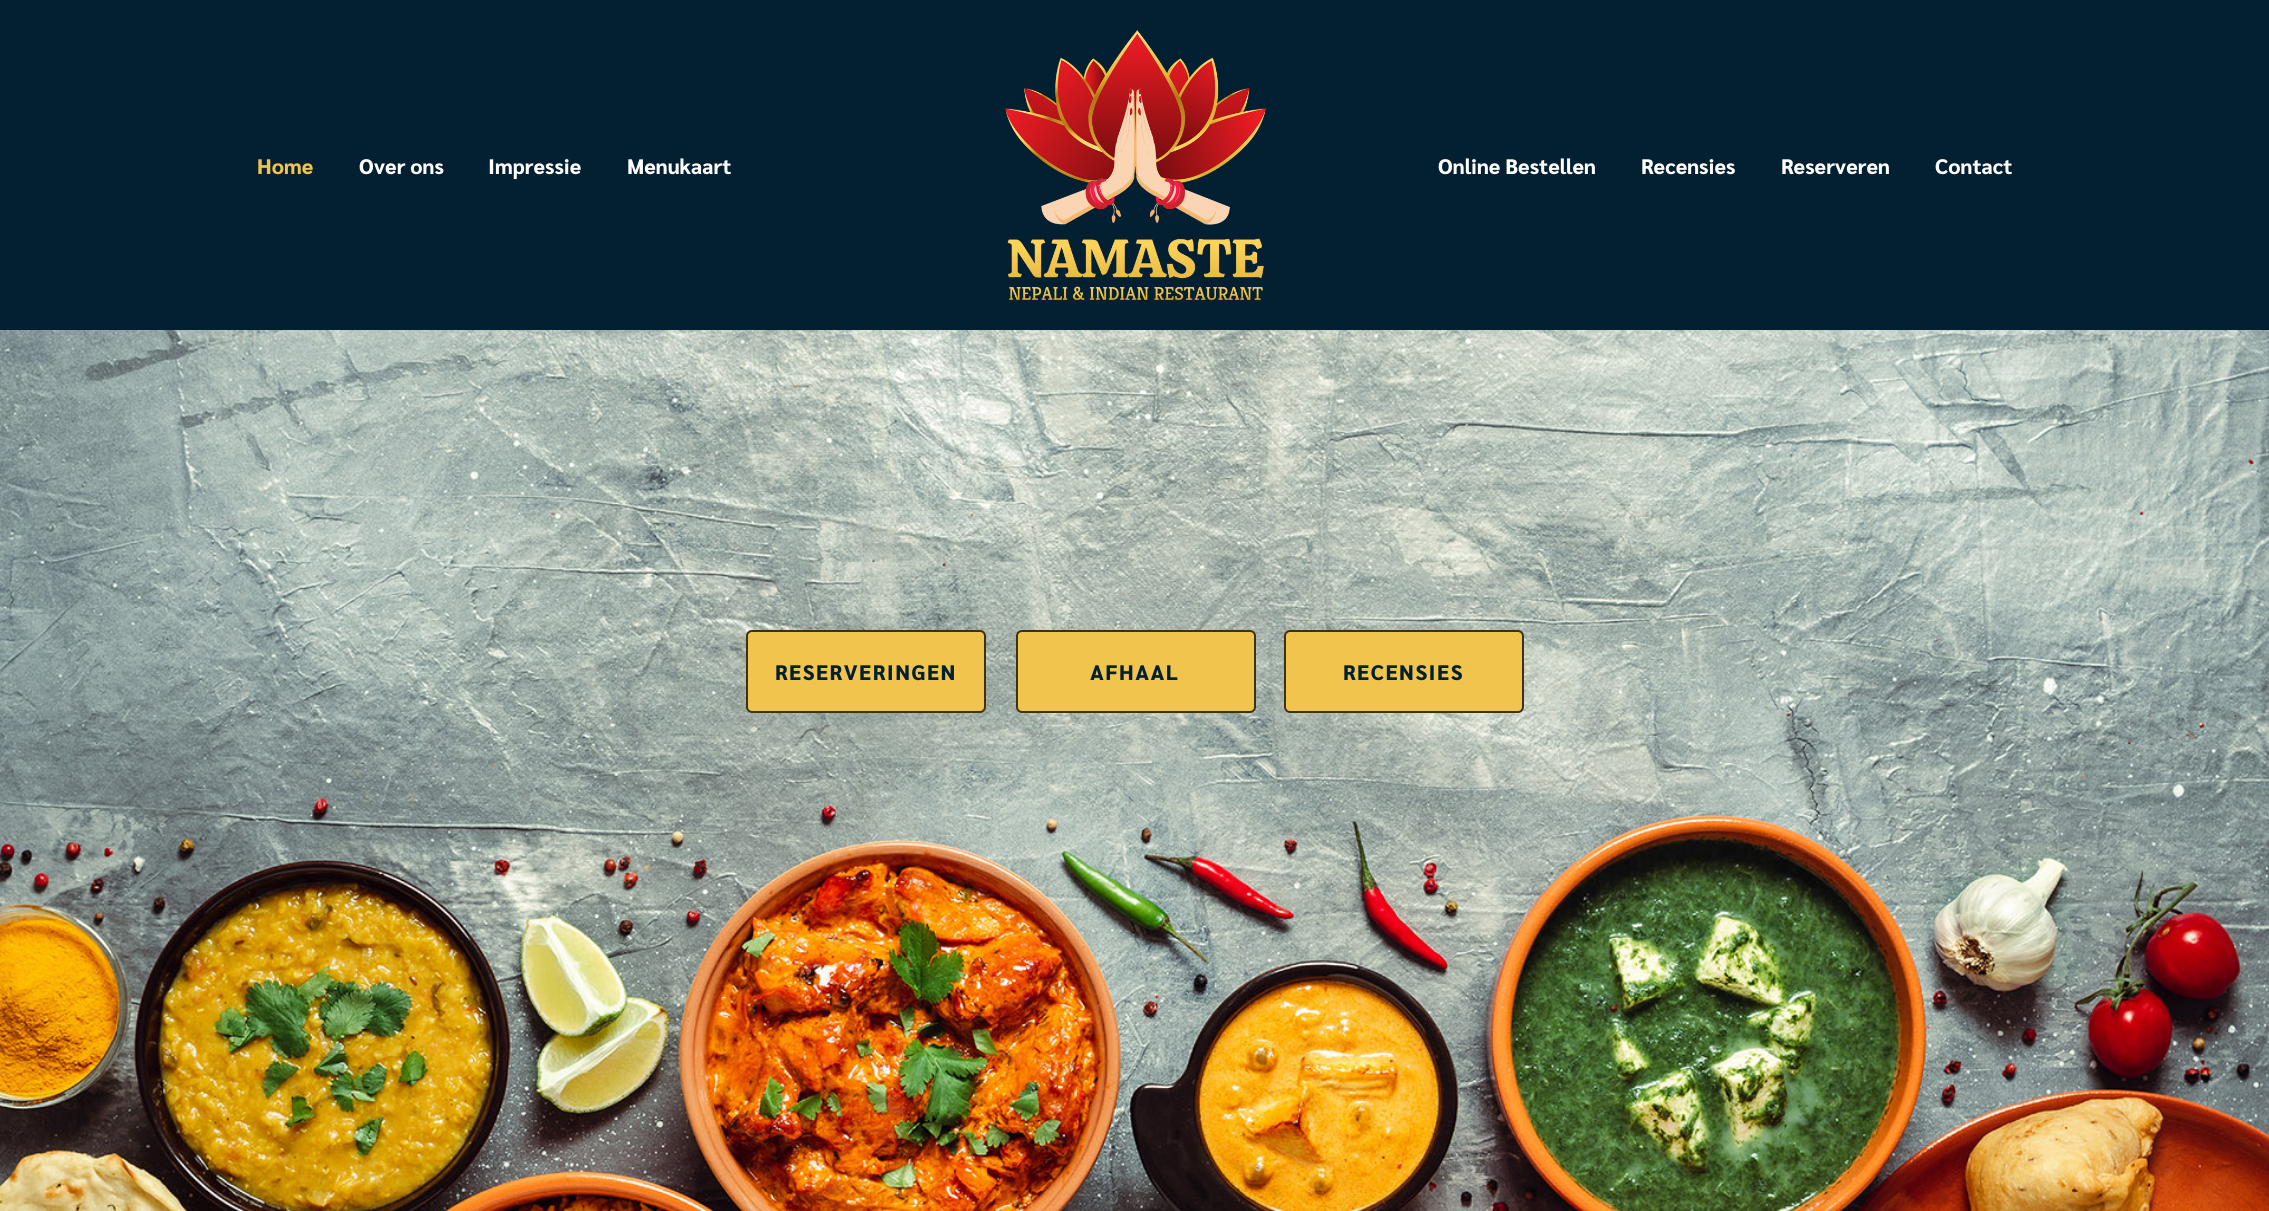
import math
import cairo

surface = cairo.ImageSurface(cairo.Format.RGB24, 2269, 1211)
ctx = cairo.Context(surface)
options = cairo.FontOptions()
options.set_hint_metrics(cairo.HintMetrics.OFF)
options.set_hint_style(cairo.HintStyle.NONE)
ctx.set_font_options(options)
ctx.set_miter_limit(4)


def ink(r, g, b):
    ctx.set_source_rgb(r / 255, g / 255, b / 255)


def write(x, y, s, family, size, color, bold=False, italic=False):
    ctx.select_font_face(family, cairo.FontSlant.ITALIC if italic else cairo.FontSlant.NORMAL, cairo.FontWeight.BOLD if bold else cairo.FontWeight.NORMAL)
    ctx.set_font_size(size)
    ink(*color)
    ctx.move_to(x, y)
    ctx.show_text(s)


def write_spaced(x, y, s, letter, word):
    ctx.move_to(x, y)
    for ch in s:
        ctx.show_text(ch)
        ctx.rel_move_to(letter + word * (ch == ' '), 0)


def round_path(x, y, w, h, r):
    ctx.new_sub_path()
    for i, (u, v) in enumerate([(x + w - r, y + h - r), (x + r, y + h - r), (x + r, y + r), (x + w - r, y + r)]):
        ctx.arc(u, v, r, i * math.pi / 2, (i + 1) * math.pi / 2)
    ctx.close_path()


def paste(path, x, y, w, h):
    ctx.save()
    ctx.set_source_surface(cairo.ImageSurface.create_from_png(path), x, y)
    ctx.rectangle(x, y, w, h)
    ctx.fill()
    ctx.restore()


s1 = dict(family="Sarabun ExtraBold", size=21, color=(241, 197, 77))
s2 = dict(family="Sarabun ExtraBold", size=21, color=(255, 255, 255))

ink(3, 32, 50)
ctx.paint()
write(257, 174, "Home", **s1)
write(359, 174, "Over ons", **s2)
write(488, 174, "Impressie", **s2)
write(627, 174, "Menukaart", **s2)
paste("pic1.png", 1005, 30, 261, 270)
write(1438, 174, "Online Bestellen", **s2)
write(1641, 174, "Recensies", **s2)
write(1781, 174, "Reserveren", **s2)
write(1935, 174, "Contact", **s2)
paste("pic2.png", 0, 330, 2269, 881)
ink(241, 197, 77)
round_path(746, 630, 240, 83, 6)
ctx.fill()
round_path(747, 631, 238, 81, 5)
ctx.set_source_rgba(0, 0, 0, 0.75)
ctx.stroke()
ink(3, 32, 50)
write_spaced(775, 680, "RESERVERINGEN", 1.5, 0)
ink(241, 197, 77)
round_path(1016, 630, 240, 83, 6)
ctx.fill()
round_path(1017, 631, 238, 81, 5)
ctx.set_source_rgba(0, 0, 0, 0.75)
ctx.stroke()
ink(3, 32, 50)
write_spaced(1090, 680, "AFHAAL", 1.5, 0)
ink(241, 197, 77)
round_path(1284, 630, 240, 83, 6)
ctx.fill()
round_path(1285, 631, 238, 81, 5)
ctx.set_source_rgba(0, 0, 0, 0.75)
ctx.stroke()
ink(3, 32, 50)
write_spaced(1343, 680, "RECENSIES", 1.5, 0)
surface.write_to_png("screenshot.png")
